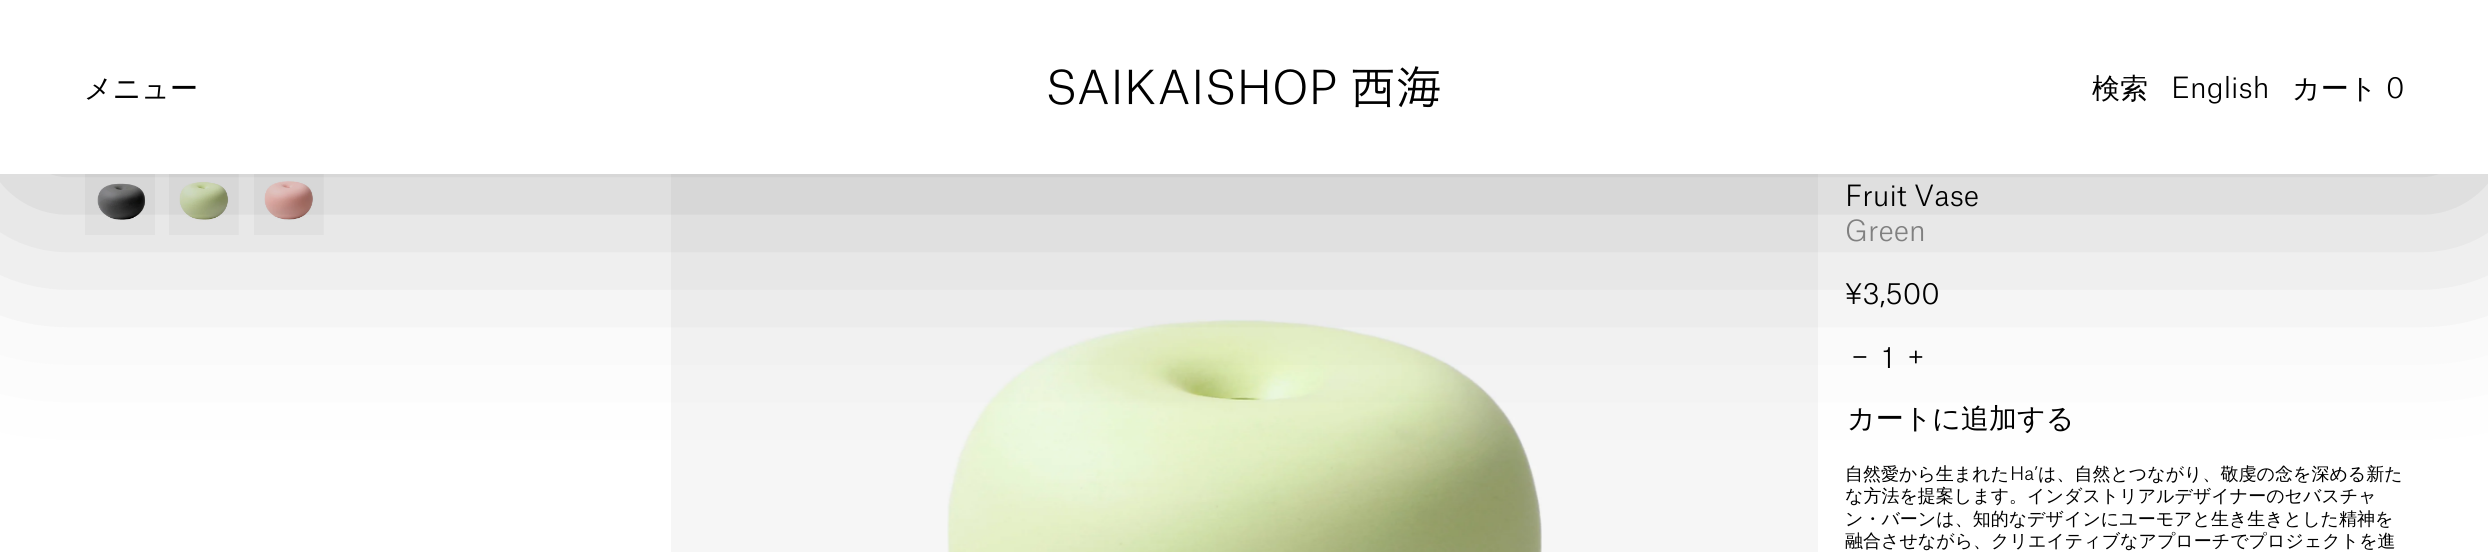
import math
import cairo

surface = cairo.ImageSurface(cairo.Format.RGB24, 2488, 552)
ctx = cairo.Context(surface)
options = cairo.FontOptions()
options.set_hint_metrics(cairo.HintMetrics.OFF)
options.set_hint_style(cairo.HintStyle.NONE)
ctx.set_font_options(options)
ctx.set_miter_limit(4)


def ink(r, g, b):
    ctx.set_source_rgb(r / 255, g / 255, b / 255)


def write(x, y, s, family, size, color, bold=False, italic=False):
    ctx.select_font_face(family, cairo.FontSlant.ITALIC if italic else cairo.FontSlant.NORMAL, cairo.FontWeight.BOLD if bold else cairo.FontWeight.NORMAL)
    ctx.set_font_size(size)
    ink(*color)
    ctx.move_to(x, y)
    ctx.show_text(s)


def block(x, y, w, h, *color):
    ink(*color)
    ctx.rectangle(x, y, w, h)
    ctx.fill()


def round_path(x, y, w, h, r):
    ctx.new_sub_path()
    for i, (u, v) in enumerate([(x + w - r, y + h - r), (x + r, y + h - r), (x + r, y + r), (x + w - r, y + r)]):
        ctx.arc(u, v, r, i * math.pi / 2, (i + 1) * math.pi / 2)
    ctx.close_path()


def blur_box(x, y, w, h, r, blur, alpha):
    ctx.push_group_with_content(cairo.Content.ALPHA)
    ctx.set_operator(cairo.Operator.SOURCE)
    for i in range(15, -16, -2):
        e = blur * i / 6
        if min(w, h) + 2 * e > 0:
            ctx.set_source_rgba(0, 0, 0, alpha * math.erfc((i - 1) / 8.5) / 2)
            round_path(x - e, y - e, w + 2 * e, h + 2 * e, max(0, min(r + e + blur * .6, min(w, h) / 2 + e)))
            ctx.fill()
    ctx.mask(ctx.pop_group())


def paste(path, x, y, w, h):
    ctx.save()
    ctx.set_source_surface(cairo.ImageSurface.create_from_png(path), x, y)
    ctx.rectangle(x, y, w, h)
    ctx.fill()
    ctx.restore()


s1 = dict(family="WenQuanYi Zen Hei Medium", size=28, color=(0, 0, 0))
s2 = dict(family="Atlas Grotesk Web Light", size=28, color=(0, 0, 0))
s3 = dict(family="Atlas Grotesk Web Light", size=28, color=(128, 128, 128))
s4 = dict(family="WenQuanYi Zen Hei Medium", size=18, color=(0, 0, 0))
s5 = dict(family="Atlas Grotesk Web Light", size=18, color=(0, 0, 0))

ink(255, 255, 255)
ctx.paint()
paste("pic2.png", 85, 174, 70, 61)
paste("pic3.png", 169, 174, 70, 61)
paste("pic4.png", 254, 174, 70, 61)
block(671, 174, 1147, 378, 246, 246, 246)
paste("pic5.png", 947, 319, 595, 233)
ctx.save()
ctx.set_fill_rule(cairo.FillRule.EVEN_ODD)
ctx.new_path()
ctx.move_to(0, 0)
ctx.line_to(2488, 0)
ctx.line_to(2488, 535)
ctx.line_to(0, 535)
ctx.close_path()
ctx.move_to(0, 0)
ctx.line_to(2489, 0)
ctx.line_to(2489, 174)
ctx.line_to(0, 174)
ctx.close_path()
ctx.clip()
ink(0, 0, 0)
blur_box(0, 23, 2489, 173, 0, 112.5, 0.25)
ctx.restore()
write(84, 98, "メニュー", **s1)
paste("pic1.png", 1048, 66, 392, 42)
write(2092, 98, "検索", **s1)
write(2171, 98, "English", **s2)
write(2292, 98, "カート", **s1)
write(2386, 98, "0", **s2)
write(1845, 206, "Fruit Vase", **s2)
write(1845, 241, "Green", **s3)
write(1845, 304, "¥3,500", **s2)
write(1851, 367, "−", **s2)
write(1882, 368, "1", **s2)
write(1907, 367, "+", **s2)
write(1847, 428, "カートに追加する", **s1)
write(1845, 480, "自然愛から生まれた", **s4)
write(2010, 480, "Ha’", **s5)
write(2038, 480, "は、自然とつながり、敬虔の念を深める新た", **s4)
write(1845, 502, "な方法を提案します。インダストリアルデザイナーのセバスチャ", **s4)
write(1845, 525, "ン・バーンは、知的なデザインにユーモアと生き生きとした精神を", **s4)
write(1845, 547, "融合させながら、クリエイティブなアプローチでプロジェクトを進", **s4)
surface.write_to_png("screenshot.png")
